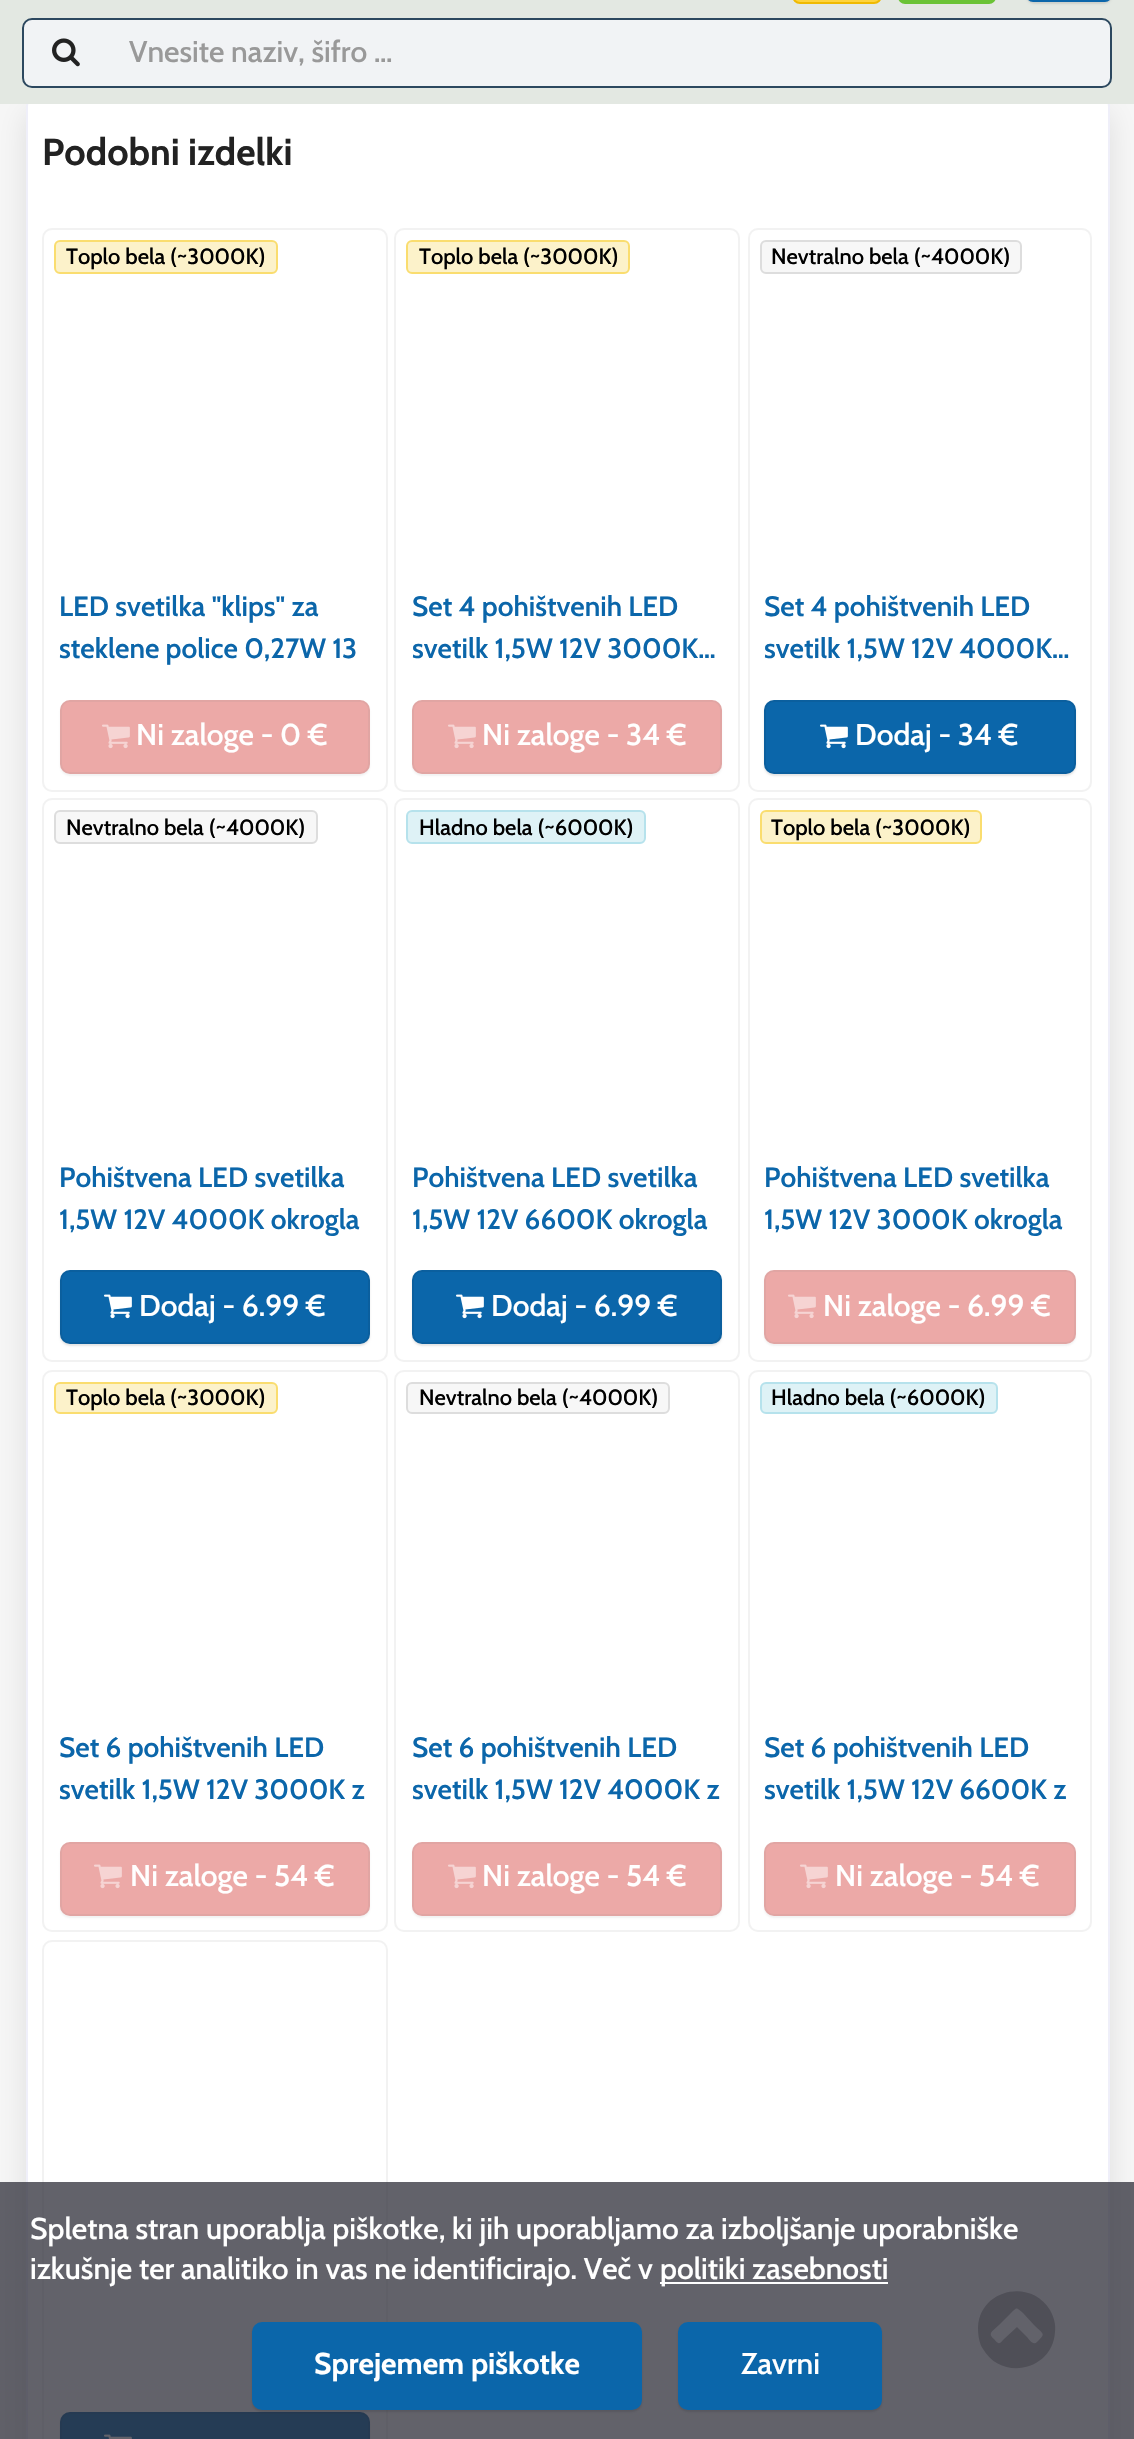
void draw(SkCanvas* canvas) {
	SkPaint fill;
	fill.setAntiAlias(true);
	auto makeFont = [&](const char* family, int weight, float size, bool italic = false) {
		SkFontStyle style(weight, SkFontStyle::kNormal_Width,
			italic ? SkFontStyle::kItalic_Slant : SkFontStyle::kUpright_Slant);
		SkFont result(fontMgr->matchFamilyStyle(family, style), size);
		result.setSubpixel(true);
		return result;
	};
	auto text = [&](const char* s, float x, float y, const SkFont& font) {
		canvas->drawString(s, x, y, font, fill);
	};
	auto box = [&](float l, float t, float r, float b) {
		canvas->drawRect(SkRect::MakeLTRB(l, t, r, b), fill);
	};
	auto roundBox = [&](float l, float t, float r, float b, float radius) {
		canvas->drawRoundRect(SkRect::MakeLTRB(l, t, r, b), radius, radius, fill);
	};
	auto picture = [&](const char* path, float l, float t, float r, float b) {
		auto image = SkImages::DeferredFromEncodedData(SkData::MakeFromFileName(path));
		canvas->drawImageRect(image, SkRect::MakeLTRB(l, t, r, b), SkSamplingOptions());
	};
	canvas->clear(0xFFF7F7F7);
	fill.setColor(0x1A000000);
	fill.setMaskFilter(SkMaskFilter::MakeBlur(kNormal_SkBlurStyle, 15));
	canvas->drawRoundRect(SkRect::MakeLTRB(26, 112, 1110, 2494), 10, 10, fill);
	fill.setMaskFilter(nullptr);
	fill.setColor(0xFFFFFFFF);
	canvas->drawRoundRect(SkRect::MakeLTRB(27, 97, 1109, 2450), 9, 9, fill);
	fill.setStyle(SkPaint::kStroke_Style);
	fill.setStrokeWidth(2);
	fill.setColor(0xFFEFEFF9);
	canvas->drawRoundRect(SkRect::MakeLTRB(27, 97, 1109, 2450), 9, 9, fill);
	fill.setStyle(SkPaint::kFill_Style);
	fill.setColor(0xFFE3E8E2);
	box(0, 0, 1134, 104);
	fill.setColor(0xFFFED43D);
	canvas->drawRoundRect(SkRect::MakeLTRB(793, -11, 881, 3), 9, 9, fill);
	fill.setStyle(SkPaint::kStroke_Style);
	fill.setColor(0xFFEFBA01);
	canvas->drawRoundRect(SkRect::MakeLTRB(793, -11, 881, 3), 9, 9, fill);
	fill.setStyle(SkPaint::kFill_Style);
	fill.setColor(0xFF6AC335);
	roundBox(898, -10, 996, 4, 10);
	fill.setColor(0x1A000000);
	fill.setMaskFilter(SkMaskFilter::MakeBlur(kNormal_SkBlurStyle, 1));
	canvas->drawRoundRect(SkRect::MakeLTRB(1026, -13, 1112, 4), 10, 10, fill);
	fill.setMaskFilter(nullptr);
	fill.setStyle(SkPaint::kStroke_Style);
	fill.setColor(0xFF0B66AA);
	canvas->drawRoundRect(SkRect::MakeLTRB(1027, -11, 1111, 1), 9, 9, fill);
	fill.setStyle(SkPaint::kFill_Style);
	fill.setColor(0xFFF1F3F5);
	canvas->drawRoundRect(SkRect::MakeLTRB(23, 19, 1111, 87), 9, 9, fill);
	fill.setStyle(SkPaint::kStroke_Style);
	fill.setColor(0xFF2C485F);
	canvas->drawRoundRect(SkRect::MakeLTRB(23, 19, 1111, 87), 9, 9, fill);
	picture("image0.png", 52, 38, 80, 67);
	fill.setColor(0xFFF2F2F2);
	canvas->drawRoundRect(SkRect::MakeLTRB(43, 229, 387, 791), 9, 9, fill);
	fill.setStyle(SkPaint::kFill_Style);
	fill.setColor(0xFFFCF2CA);
	canvas->drawRoundRect(SkRect::MakeLTRB(55, 241, 277, 273), 5, 5, fill);
	fill.setStyle(SkPaint::kStroke_Style);
	fill.setColor(0xFFFADD6F);
	canvas->drawRoundRect(SkRect::MakeLTRB(55, 241, 277, 273), 5, 5, fill);
	fill.setStyle(SkPaint::kFill_Style);
	fill.setColor(0x1A808080);
	fill.setMaskFilter(SkMaskFilter::MakeBlur(kNormal_SkBlurStyle, 1));
	canvas->drawRoundRect(SkRect::MakeLTRB(60, 702, 370, 776), 10, 10, fill);
	fill.setMaskFilter(nullptr);
	fill.setColor(0xFFECA9A7);
	roundBox(60, 700, 370, 774, 10);
	fill.setStyle(SkPaint::kStroke_Style);
	fill.setColor(0x1A808080);
	canvas->drawRoundRect(SkRect::MakeLTRB(61, 701, 369, 773), 9, 9, fill);
	picture("image1.png", 102, 724, 130, 749);
	fill.setColor(0xFFF2F2F2);
	canvas->drawRoundRect(SkRect::MakeLTRB(395, 229, 739, 791), 9, 9, fill);
	fill.setStyle(SkPaint::kFill_Style);
	fill.setColor(0xFFFCF2CA);
	canvas->drawRoundRect(SkRect::MakeLTRB(407, 241, 629, 273), 5, 5, fill);
	fill.setStyle(SkPaint::kStroke_Style);
	fill.setColor(0xFFFADD6F);
	canvas->drawRoundRect(SkRect::MakeLTRB(407, 241, 629, 273), 5, 5, fill);
	fill.setStyle(SkPaint::kFill_Style);
	fill.setColor(0x1A808080);
	fill.setMaskFilter(SkMaskFilter::MakeBlur(kNormal_SkBlurStyle, 1));
	canvas->drawRoundRect(SkRect::MakeLTRB(412, 702, 722, 776), 10, 10, fill);
	fill.setMaskFilter(nullptr);
	fill.setColor(0xFFECA9A7);
	roundBox(412, 700, 722, 774, 10);
	fill.setStyle(SkPaint::kStroke_Style);
	fill.setColor(0x1A808080);
	canvas->drawRoundRect(SkRect::MakeLTRB(413, 701, 721, 773), 9, 9, fill);
	picture("image1.png", 448, 724, 476, 749);
	fill.setColor(0xFFF2F2F2);
	canvas->drawRoundRect(SkRect::MakeLTRB(749, 229, 1091, 791), 9, 9, fill);
	fill.setStyle(SkPaint::kFill_Style);
	fill.setColor(0xFFF7F7F7);
	canvas->drawRoundRect(SkRect::MakeLTRB(761, 241, 1021, 273), 5, 5, fill);
	fill.setStyle(SkPaint::kStroke_Style);
	fill.setColor(0xFFDDDDDD);
	canvas->drawRoundRect(SkRect::MakeLTRB(761, 241, 1021, 273), 5, 5, fill);
	fill.setStyle(SkPaint::kFill_Style);
	fill.setColor(0x1A000000);
	fill.setMaskFilter(SkMaskFilter::MakeBlur(kNormal_SkBlurStyle, 1));
	canvas->drawRoundRect(SkRect::MakeLTRB(764, 702, 1076, 776), 10, 10, fill);
	fill.setMaskFilter(nullptr);
	fill.setColor(0xFF0B66AA);
	roundBox(764, 700, 1076, 774, 10);
	fill.setStyle(SkPaint::kStroke_Style);
	fill.setColor(0x12000000);
	canvas->drawRoundRect(SkRect::MakeLTRB(765, 701, 1075, 773), 9, 9, fill);
	picture("image2.png", 820, 724, 848, 749);
	fill.setColor(0xFFF2F2F2);
	canvas->drawRoundRect(SkRect::MakeLTRB(43, 799, 387, 1361), 9, 9, fill);
	fill.setStyle(SkPaint::kFill_Style);
	fill.setColor(0xFFF7F7F7);
	canvas->drawRoundRect(SkRect::MakeLTRB(55, 811, 317, 843), 5, 5, fill);
	fill.setStyle(SkPaint::kStroke_Style);
	fill.setColor(0xFFDDDDDD);
	canvas->drawRoundRect(SkRect::MakeLTRB(55, 811, 317, 843), 5, 5, fill);
	fill.setStyle(SkPaint::kFill_Style);
	fill.setColor(0x1A000000);
	fill.setMaskFilter(SkMaskFilter::MakeBlur(kNormal_SkBlurStyle, 1));
	canvas->drawRoundRect(SkRect::MakeLTRB(60, 1272, 370, 1346), 10, 10, fill);
	fill.setMaskFilter(nullptr);
	fill.setColor(0xFF0B66AA);
	roundBox(60, 1270, 370, 1344, 10);
	fill.setStyle(SkPaint::kStroke_Style);
	fill.setColor(0x12000000);
	canvas->drawRoundRect(SkRect::MakeLTRB(61, 1271, 369, 1343), 9, 9, fill);
	picture("image2.png", 104, 1294, 132, 1319);
	fill.setColor(0xFFF2F2F2);
	canvas->drawRoundRect(SkRect::MakeLTRB(395, 799, 739, 1361), 9, 9, fill);
	fill.setStyle(SkPaint::kFill_Style);
	fill.setColor(0xFFDEF2F6);
	canvas->drawRoundRect(SkRect::MakeLTRB(407, 811, 645, 843), 5, 5, fill);
	fill.setStyle(SkPaint::kStroke_Style);
	fill.setColor(0xFFB6E2EC);
	canvas->drawRoundRect(SkRect::MakeLTRB(407, 811, 645, 843), 5, 5, fill);
	fill.setStyle(SkPaint::kFill_Style);
	fill.setColor(0x1A000000);
	fill.setMaskFilter(SkMaskFilter::MakeBlur(kNormal_SkBlurStyle, 1));
	canvas->drawRoundRect(SkRect::MakeLTRB(412, 1272, 722, 1346), 10, 10, fill);
	fill.setMaskFilter(nullptr);
	fill.setColor(0xFF0B66AA);
	roundBox(412, 1270, 722, 1344, 10);
	fill.setStyle(SkPaint::kStroke_Style);
	fill.setColor(0x12000000);
	canvas->drawRoundRect(SkRect::MakeLTRB(413, 1271, 721, 1343), 9, 9, fill);
	picture("image2.png", 456, 1294, 484, 1319);
	fill.setColor(0xFFF2F2F2);
	canvas->drawRoundRect(SkRect::MakeLTRB(749, 799, 1091, 1361), 9, 9, fill);
	fill.setStyle(SkPaint::kFill_Style);
	fill.setColor(0xFFFCF2CA);
	canvas->drawRoundRect(SkRect::MakeLTRB(761, 811, 981, 843), 5, 5, fill);
	fill.setStyle(SkPaint::kStroke_Style);
	fill.setColor(0xFFFADD6F);
	canvas->drawRoundRect(SkRect::MakeLTRB(761, 811, 981, 843), 5, 5, fill);
	fill.setStyle(SkPaint::kFill_Style);
	fill.setColor(0x1A808080);
	fill.setMaskFilter(SkMaskFilter::MakeBlur(kNormal_SkBlurStyle, 1));
	canvas->drawRoundRect(SkRect::MakeLTRB(764, 1272, 1076, 1346), 10, 10, fill);
	fill.setMaskFilter(nullptr);
	fill.setColor(0xFFECA9A7);
	roundBox(764, 1270, 1076, 1344, 10);
	fill.setStyle(SkPaint::kStroke_Style);
	fill.setColor(0x1A808080);
	canvas->drawRoundRect(SkRect::MakeLTRB(765, 1271, 1075, 1343), 9, 9, fill);
	picture("image1.png", 788, 1294, 816, 1319);
	fill.setColor(0xFFF2F2F2);
	canvas->drawRoundRect(SkRect::MakeLTRB(43, 1371, 387, 1931), 9, 9, fill);
	fill.setStyle(SkPaint::kFill_Style);
	fill.setColor(0xFFFCF2CA);
	canvas->drawRoundRect(SkRect::MakeLTRB(55, 1383, 277, 1413), 5, 5, fill);
	fill.setStyle(SkPaint::kStroke_Style);
	fill.setColor(0xFFFADD6F);
	canvas->drawRoundRect(SkRect::MakeLTRB(55, 1383, 277, 1413), 5, 5, fill);
	fill.setStyle(SkPaint::kFill_Style);
	fill.setColor(0x1A808080);
	fill.setMaskFilter(SkMaskFilter::MakeBlur(kNormal_SkBlurStyle, 1));
	canvas->drawRoundRect(SkRect::MakeLTRB(60, 1844, 370, 1918), 10, 10, fill);
	fill.setMaskFilter(nullptr);
	fill.setColor(0xFFECA9A7);
	roundBox(60, 1842, 370, 1916, 10);
	fill.setStyle(SkPaint::kStroke_Style);
	fill.setColor(0x1A808080);
	canvas->drawRoundRect(SkRect::MakeLTRB(61, 1843, 369, 1915), 9, 9, fill);
	picture("image1.png", 94, 1864, 122, 1889);
	fill.setColor(0xFFF2F2F2);
	canvas->drawRoundRect(SkRect::MakeLTRB(395, 1371, 739, 1931), 9, 9, fill);
	fill.setStyle(SkPaint::kFill_Style);
	fill.setColor(0xFFF7F7F7);
	canvas->drawRoundRect(SkRect::MakeLTRB(407, 1383, 669, 1413), 5, 5, fill);
	fill.setStyle(SkPaint::kStroke_Style);
	fill.setColor(0xFFDDDDDD);
	canvas->drawRoundRect(SkRect::MakeLTRB(407, 1383, 669, 1413), 5, 5, fill);
	fill.setStyle(SkPaint::kFill_Style);
	fill.setColor(0x1A808080);
	fill.setMaskFilter(SkMaskFilter::MakeBlur(kNormal_SkBlurStyle, 1));
	canvas->drawRoundRect(SkRect::MakeLTRB(412, 1844, 722, 1918), 10, 10, fill);
	fill.setMaskFilter(nullptr);
	fill.setColor(0xFFECA9A7);
	roundBox(412, 1842, 722, 1916, 10);
	fill.setStyle(SkPaint::kStroke_Style);
	fill.setColor(0x1A808080);
	canvas->drawRoundRect(SkRect::MakeLTRB(413, 1843, 721, 1915), 9, 9, fill);
	picture("image1.png", 448, 1864, 476, 1889);
	fill.setColor(0xFFF2F2F2);
	canvas->drawRoundRect(SkRect::MakeLTRB(749, 1371, 1091, 1931), 9, 9, fill);
	fill.setStyle(SkPaint::kFill_Style);
	fill.setColor(0xFFDEF2F6);
	canvas->drawRoundRect(SkRect::MakeLTRB(761, 1383, 997, 1413), 5, 5, fill);
	fill.setStyle(SkPaint::kStroke_Style);
	fill.setColor(0xFFB6E2EC);
	canvas->drawRoundRect(SkRect::MakeLTRB(761, 1383, 997, 1413), 5, 5, fill);
	fill.setStyle(SkPaint::kFill_Style);
	fill.setColor(0x1A808080);
	fill.setMaskFilter(SkMaskFilter::MakeBlur(kNormal_SkBlurStyle, 1));
	canvas->drawRoundRect(SkRect::MakeLTRB(764, 1844, 1076, 1918), 10, 10, fill);
	fill.setMaskFilter(nullptr);
	fill.setColor(0xFFECA9A7);
	roundBox(764, 1842, 1076, 1916, 10);
	fill.setStyle(SkPaint::kStroke_Style);
	fill.setColor(0x1A808080);
	canvas->drawRoundRect(SkRect::MakeLTRB(765, 1843, 1075, 1915), 9, 9, fill);
	picture("image1.png", 800, 1864, 828, 1889);
	fill.setColor(0xFFF2F2F2);
	canvas->drawRoundRect(SkRect::MakeLTRB(43, 1941, 387, 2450), 9, 9, fill);
	fill.setStyle(SkPaint::kFill_Style);
	fill.setColor(0x1A000000);
	fill.setMaskFilter(SkMaskFilter::MakeBlur(kNormal_SkBlurStyle, 1));
	canvas->drawRoundRect(SkRect::MakeLTRB(60, 2414, 370, 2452), 10, 10, fill);
	fill.setMaskFilter(nullptr);
	fill.setColor(0xFF0B66AA);
	roundBox(60, 2412, 370, 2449, 10);
	fill.setStyle(SkPaint::kStroke_Style);
	fill.setColor(0x12000000);
	canvas->drawRoundRect(SkRect::MakeLTRB(61, 2413, 369, 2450), 9, 9, fill);
	picture("image3.png", 104, 2434, 132, 2439);
	fill.setStyle(SkPaint::kFill_Style);
	fill.setColor(0xFFB3B3B3);
	canvas->drawPath(SkPathBuilder().moveTo(1037, 2342).cubicTo(1046, 2333, 1044, 2335, 1034, 2325).lineTo(1023, 2313).cubicTo(1016, 2307, 1017, 2307, 1011, 2313).lineTo(999, 2325).cubicTo(993, 2331, 987, 2333, 994, 2339).cubicTo(998, 2344, 999, 2345, 1004, 2339).lineTo(1017, 2327).lineTo(1027, 2337).cubicTo(1029, 2339, 1033, 2346, 1037, 2342).close().moveTo(1050, 2310).cubicTo(1054, 2317, 1056, 2325, 1055, 2332).cubicTo(1053, 2370, 1002, 2382, 983, 2349).cubicTo(979, 2343, 978, 2335, 978, 2327).cubicTo(980, 2289, 1031, 2278, 1050, 2310).close().detach(), fill);
	fill.setColor(0xBF2D2D38);
	box(0, 2182, 1134, 2439);
	fill.setColor(0xFFFFFFFF);
	box(660, 2282, 888, 2284);
	fill.setColor(0x1A000000);
	fill.setMaskFilter(SkMaskFilter::MakeBlur(kNormal_SkBlurStyle, 1));
	canvas->drawRoundRect(SkRect::MakeLTRB(252, 2324, 642, 2412), 10, 10, fill);
	fill.setMaskFilter(nullptr);
	fill.setColor(0xFF0B66AA);
	canvas->drawRoundRect(SkRect::MakeLTRB(253, 2323, 641, 2409), 9, 9, fill);
	fill.setStyle(SkPaint::kStroke_Style);
	canvas->drawRoundRect(SkRect::MakeLTRB(253, 2323, 641, 2409), 9, 9, fill);
	fill.setStyle(SkPaint::kFill_Style);
	fill.setColor(0x1A000000);
	fill.setMaskFilter(SkMaskFilter::MakeBlur(kNormal_SkBlurStyle, 1));
	canvas->drawRoundRect(SkRect::MakeLTRB(678, 2324, 882, 2412), 10, 10, fill);
	fill.setMaskFilter(nullptr);
	fill.setColor(0xFF0B66AA);
	canvas->drawRoundRect(SkRect::MakeLTRB(679, 2323, 881, 2409), 9, 9, fill);
	fill.setStyle(SkPaint::kStroke_Style);
	canvas->drawRoundRect(SkRect::MakeLTRB(679, 2323, 881, 2409), 9, 9, fill);
	auto font1 = makeFont("Cabin", 500, 30);
	fill.setStyle(SkPaint::kFill_Style);
	fill.setColor(0xFF999999);
	text("Vnesite naziv, šifro …", 129, 62, font1);
	auto font2 = makeFont("Cabin", 700, 37.5f);
	fill.setColor(0xFF222222);
	text("Podobni izdelki", 42, 165, font2);
	auto font3 = makeFont("Cabin", 500, 22);
	fill.setColor(0xFF000000);
	text("Toplo bela (~3000K)", 66, 264, font3);
	auto font4 = makeFont("Cabin", 600, 28);
	fill.setColor(0xFF0B66AA);
	text("LED svetilka \"klips\" za", 59, 616, font4);
	text("steklene police 0,27W 13", 59, 658, font4);
	fill.setColor(0xFFFFFFFF);
	text("Ni zaloge - 0 €", 136, 745, font1);
	fill.setColor(0xFF000000);
	text("Toplo bela (~3000K)", 419, 264, font3);
	fill.setColor(0xFF0B66AA);
	text("Set 4 pohištvenih LED", 412, 616, font4);
	text("svetilk 1,5W 12V 3000K…", 412, 658, font4);
	fill.setColor(0xFFFFFFFF);
	text("Ni zaloge - 34 €", 482, 745, font1);
	fill.setColor(0xFF000000);
	text("Nevtralno bela (~4000K)", 771, 264, font3);
	fill.setColor(0xFF0B66AA);
	text("Set 4 pohištvenih LED", 764, 616, font4);
	text("svetilk 1,5W 12V 4000K…", 764, 658, font4);
	fill.setColor(0xFFFFFFFF);
	text("Dodaj - 34 €", 855, 745, font1);
	fill.setColor(0xFF000000);
	text("Nevtralno bela (~4000K)", 66, 835, font3);
	fill.setColor(0xFF0B66AA);
	text("Pohištvena LED svetilka", 59, 1187, font4);
	text("1,5W 12V 4000K okrogla", 59, 1229, font4);
	fill.setColor(0xFFFFFFFF);
	text("Dodaj - 6.99 €", 139, 1316, font1);
	fill.setColor(0xFF000000);
	text("Hladno bela (~6000K)", 419, 835, font3);
	fill.setColor(0xFF0B66AA);
	text("Pohištvena LED svetilka", 412, 1187, font4);
	text("1,5W 12V 6600K okrogla", 412, 1229, font4);
	fill.setColor(0xFFFFFFFF);
	text("Dodaj - 6.99 €", 491, 1316, font1);
	fill.setColor(0xFF000000);
	text("Toplo bela (~3000K)", 771, 835, font3);
	fill.setColor(0xFF0B66AA);
	text("Pohištvena LED svetilka", 764, 1187, font4);
	text("1,5W 12V 3000K okrogla", 764, 1229, font4);
	fill.setColor(0xFFFFFFFF);
	text("Ni zaloge - 6.99 €", 823, 1316, font1);
	fill.setColor(0xFF000000);
	text("Toplo bela (~3000K)", 66, 1405, font3);
	fill.setColor(0xFF0B66AA);
	text("Set 6 pohištvenih LED", 59, 1757, font4);
	text("svetilk 1,5W 12V 3000K z", 59, 1799, font4);
	fill.setColor(0xFFFFFFFF);
	text("Ni zaloge - 54 €", 130, 1886, font1);
	fill.setColor(0xFF000000);
	text("Nevtralno bela (~4000K)", 419, 1405, font3);
	fill.setColor(0xFF0B66AA);
	text("Set 6 pohištvenih LED", 412, 1757, font4);
	text("svetilk 1,5W 12V 4000K z", 412, 1799, font4);
	fill.setColor(0xFFFFFFFF);
	text("Ni zaloge - 54 €", 482, 1886, font1);
	fill.setColor(0xFF000000);
	text("Hladno bela (~6000K)", 771, 1405, font3);
	fill.setColor(0xFF0B66AA);
	text("Set 6 pohištvenih LED", 764, 1757, font4);
	text("svetilk 1,5W 12V 6600K z", 764, 1799, font4);
	fill.setColor(0xFFFFFFFF);
	text("Ni zaloge - 54 €", 835, 1886, font1);
	text("Spletna stran uporablja piškotke, ki jih uporabljamo za izboljšanje uporabniške", 30, 2239, font1);
	text("izkušnje ter analitiko in vas ne identificirajo. Več v", 30, 2279, font1);
	text("politiki zasebnosti", 660, 2279, font1);
	auto font5 = makeFont("Cabin", 700, 30);
	text("Sprejemem piškotke", 314, 2374, font5);
	text("Zavrni", 741, 2374, font1);
}
